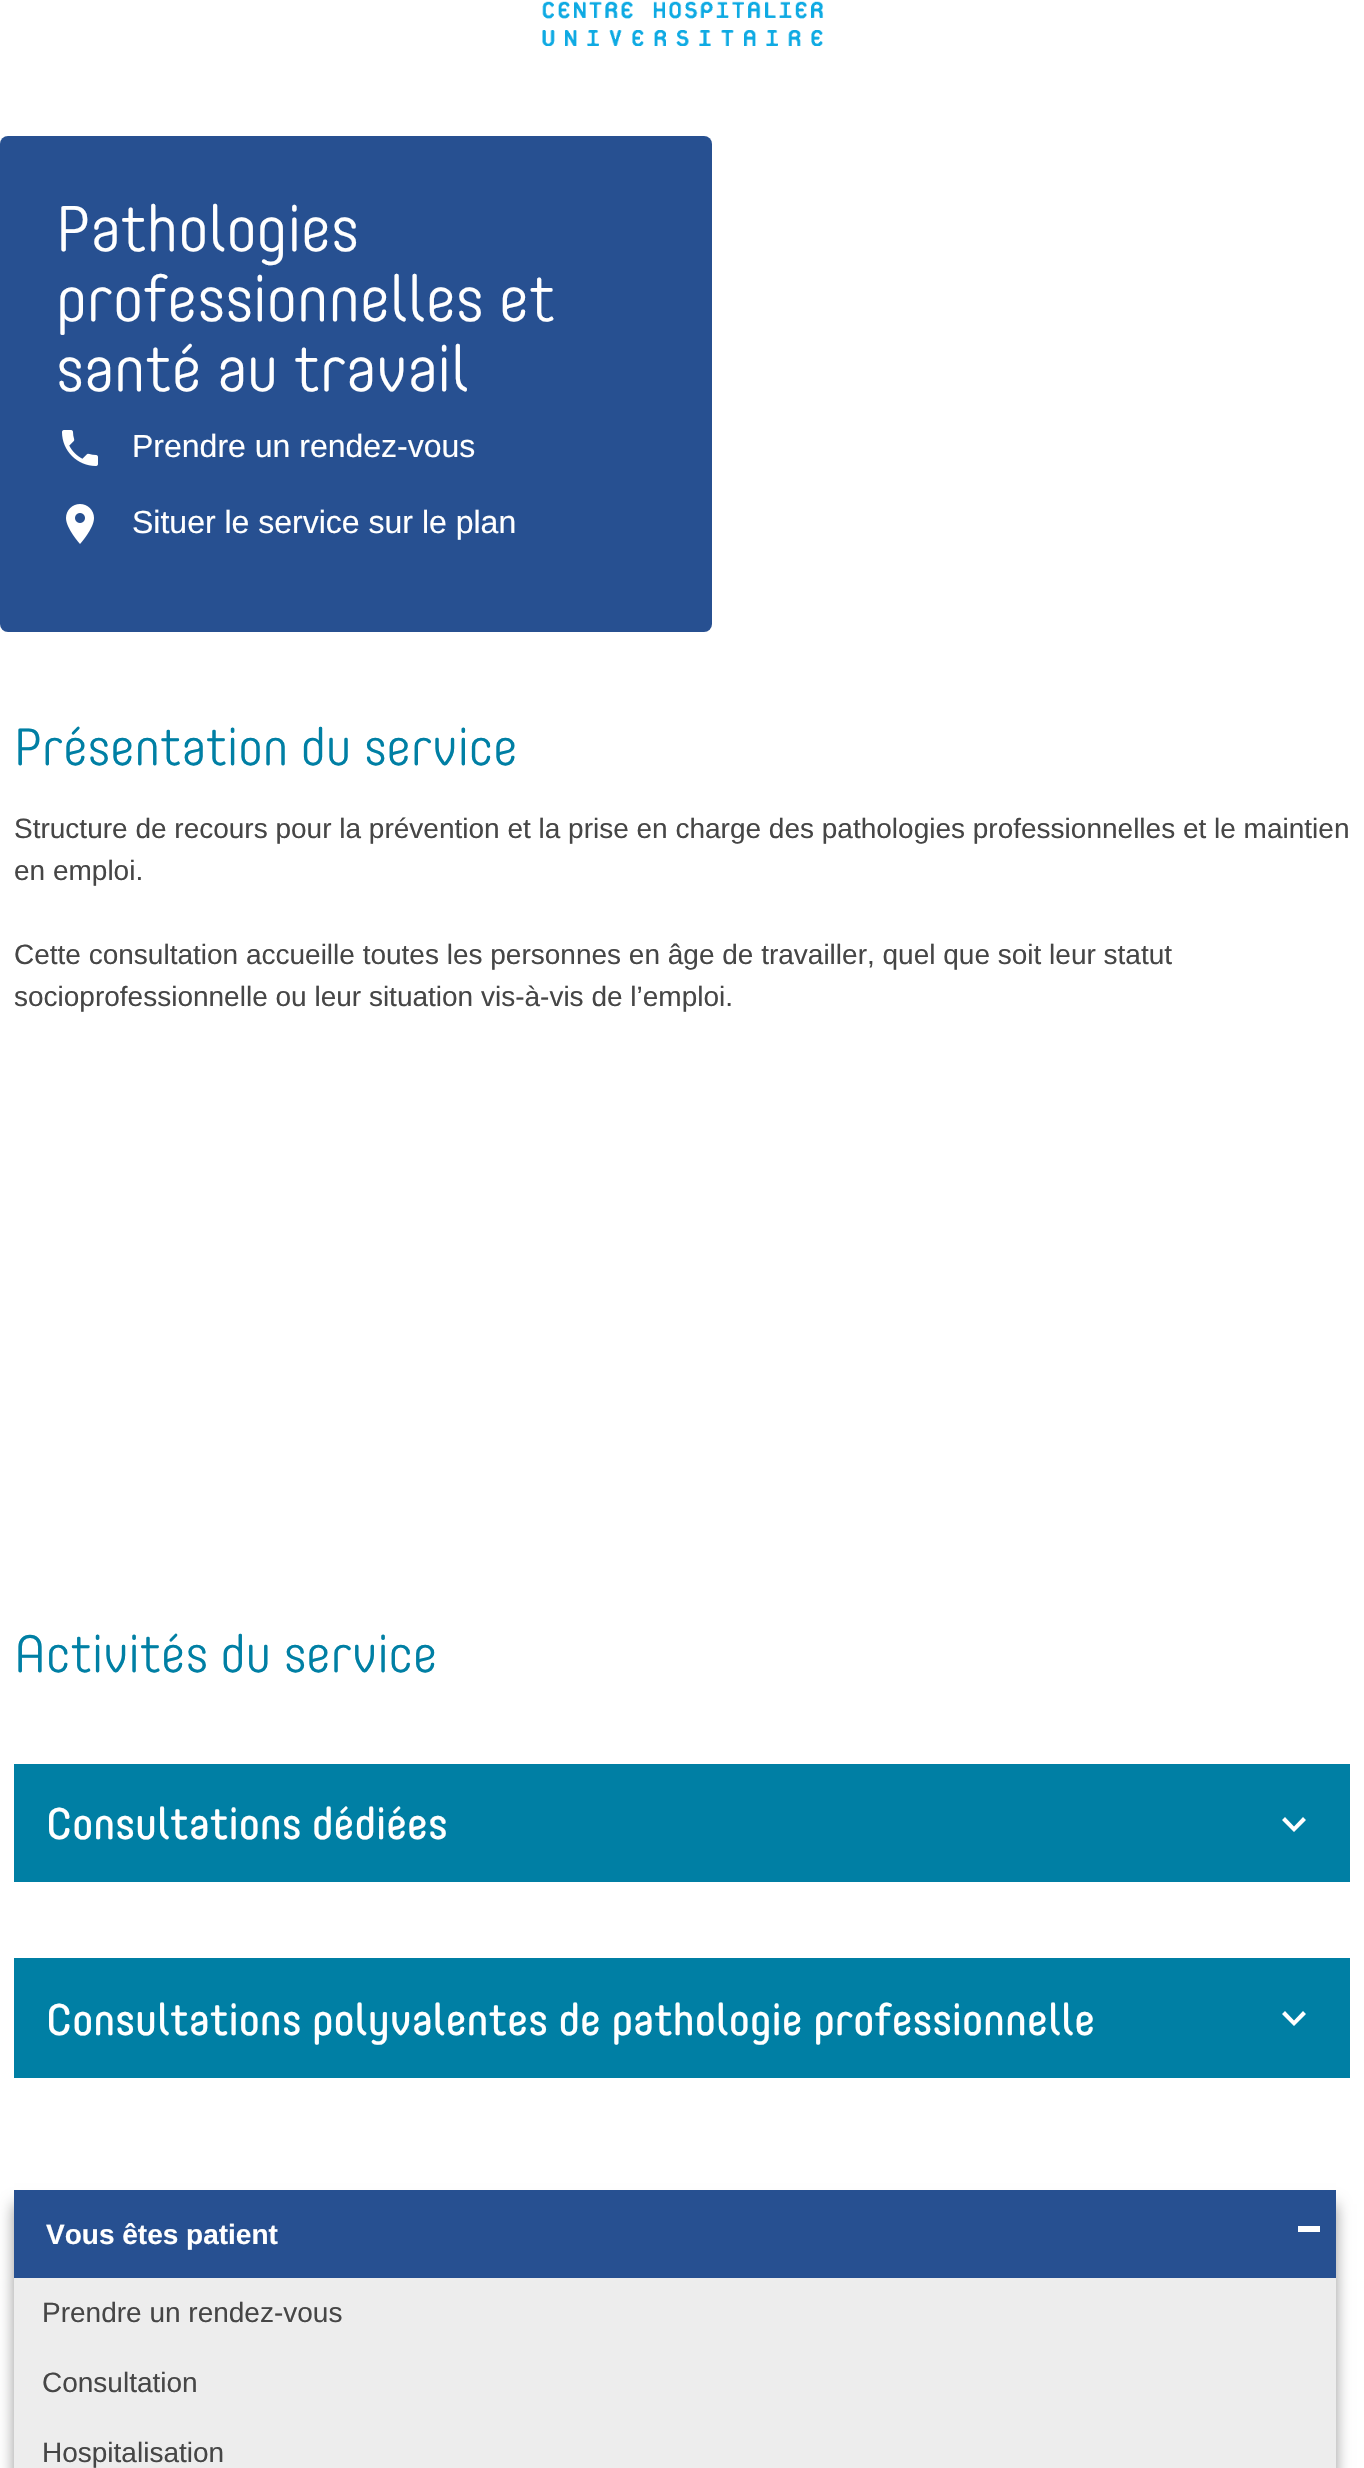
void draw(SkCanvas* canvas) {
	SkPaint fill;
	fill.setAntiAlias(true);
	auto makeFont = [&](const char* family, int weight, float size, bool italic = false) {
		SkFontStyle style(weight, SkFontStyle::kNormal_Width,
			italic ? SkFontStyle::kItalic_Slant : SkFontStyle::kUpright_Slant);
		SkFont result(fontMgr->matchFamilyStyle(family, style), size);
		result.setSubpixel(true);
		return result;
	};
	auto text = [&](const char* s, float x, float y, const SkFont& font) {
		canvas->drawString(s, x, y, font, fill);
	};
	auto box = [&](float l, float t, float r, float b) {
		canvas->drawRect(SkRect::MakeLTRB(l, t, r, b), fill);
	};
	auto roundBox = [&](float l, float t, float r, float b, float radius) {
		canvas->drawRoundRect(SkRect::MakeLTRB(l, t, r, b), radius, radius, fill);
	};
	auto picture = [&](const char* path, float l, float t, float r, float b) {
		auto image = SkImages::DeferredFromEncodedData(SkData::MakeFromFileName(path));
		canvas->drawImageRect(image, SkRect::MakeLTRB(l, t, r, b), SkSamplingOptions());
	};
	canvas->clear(0xFFFFFFFF);
	picture("image0.png", 542, 1, 824, 46);
	fill.setColor(0xFF275091);
	roundBox(0, 136, 712, 632, 8);
	picture("image1.png", 62, 430, 98, 466);
	picture("image2.png", 66, 504, 94, 544);
	fill.setColor(0xFF007FA4);
	box(14, 1764, 1350, 1882);
	fill.setColor(0xFFFFFFFF);
	canvas->drawPath(SkPathBuilder(SkPathFillType::kEvenOdd).moveTo(1285, 1817).lineTo(1294, 1826.5f).lineTo(1303, 1817).lineTo(1306, 1820).lineTo(1294, 1832).lineTo(1282, 1820).close().detach(), fill);
	fill.setColor(0xFF007FA4);
	box(14, 1958, 1350, 2078);
	fill.setColor(0xFFFFFFFF);
	canvas->drawPath(SkPathBuilder(SkPathFillType::kEvenOdd).moveTo(1285, 2011).lineTo(1294, 2020.5f).lineTo(1303, 2011).lineTo(1306, 2014).lineTo(1294, 2026).lineTo(1282, 2014).close().detach(), fill);
	fill.setColor(0x66000000);
	fill.setMaskFilter(SkMaskFilter::MakeBlur(kNormal_SkBlurStyle, 7));
	canvas->drawRect(SkRect::MakeLTRB(14, 2204, 1336, 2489), fill);
	fill.setMaskFilter(nullptr);
	fill.setColor(0xFFEDEDED);
	box(14, 2278, 1336, 2468);
	fill.setColor(0xFF275091);
	box(14, 2190, 1336, 2278);
	fill.setColor(0xFFFFFFFF);
	box(1298, 2226, 1320, 2232);
	auto font1 = makeFont("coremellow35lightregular", 400, 64);
	text("Pathologies", 56, 251, font1);
	text("professionnelles et", 56, 321, font1);
	text("santé au travail", 56, 391, font1);
	auto font2 = makeFont("Liberation Sans", 400, 32);
	text("Prendre un rendez-vous", 132, 457, font2);
	text("Situer le service sur le plan", 132, 533, font2);
	auto font3 = makeFont("coremellow35lightregular", 400, 52);
	fill.setColor(0xFF007FA4);
	text("Présentation du service", 14, 765, font3);
	auto font4 = makeFont("Liberation Sans", 400, 28);
	fill.setColor(0xFF464646);
	text("Structure de recours pour la prévention et la prise en charge des pathologies professionnelles et le maintien", 14, 838, font4);
	text("en emploi.", 14, 880, font4);
	text("Cette consultation accueille toutes les personnes en âge de travailler, quel que soit leur statut", 14, 964, font4);
	text("socioprofessionnelle ou leur situation vis-à-vis de l’emploi.", 14, 1006, font4);
	fill.setColor(0xFF007FA4);
	text("Activités du service", 14, 1672, font3);
	auto font5 = makeFont("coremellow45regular", 400, 44);
	fill.setColor(0xFFFFFFFF);
	text("Consultations dédiées", 46, 1839, font5);
	text("Consultations polyvalentes de pathologie professionnelle", 46, 2035, font5);
	auto font6 = makeFont("Liberation Sans", 700, 28);
	text("Vous êtes patient", 46, 2244, font6);
	fill.setColor(0xFF464646);
	text("Prendre un rendez-vous", 42, 2322, font4);
	text("Consultation", 42, 2392, font4);
	text("Hospitalisation", 42, 2462, font4);
}
